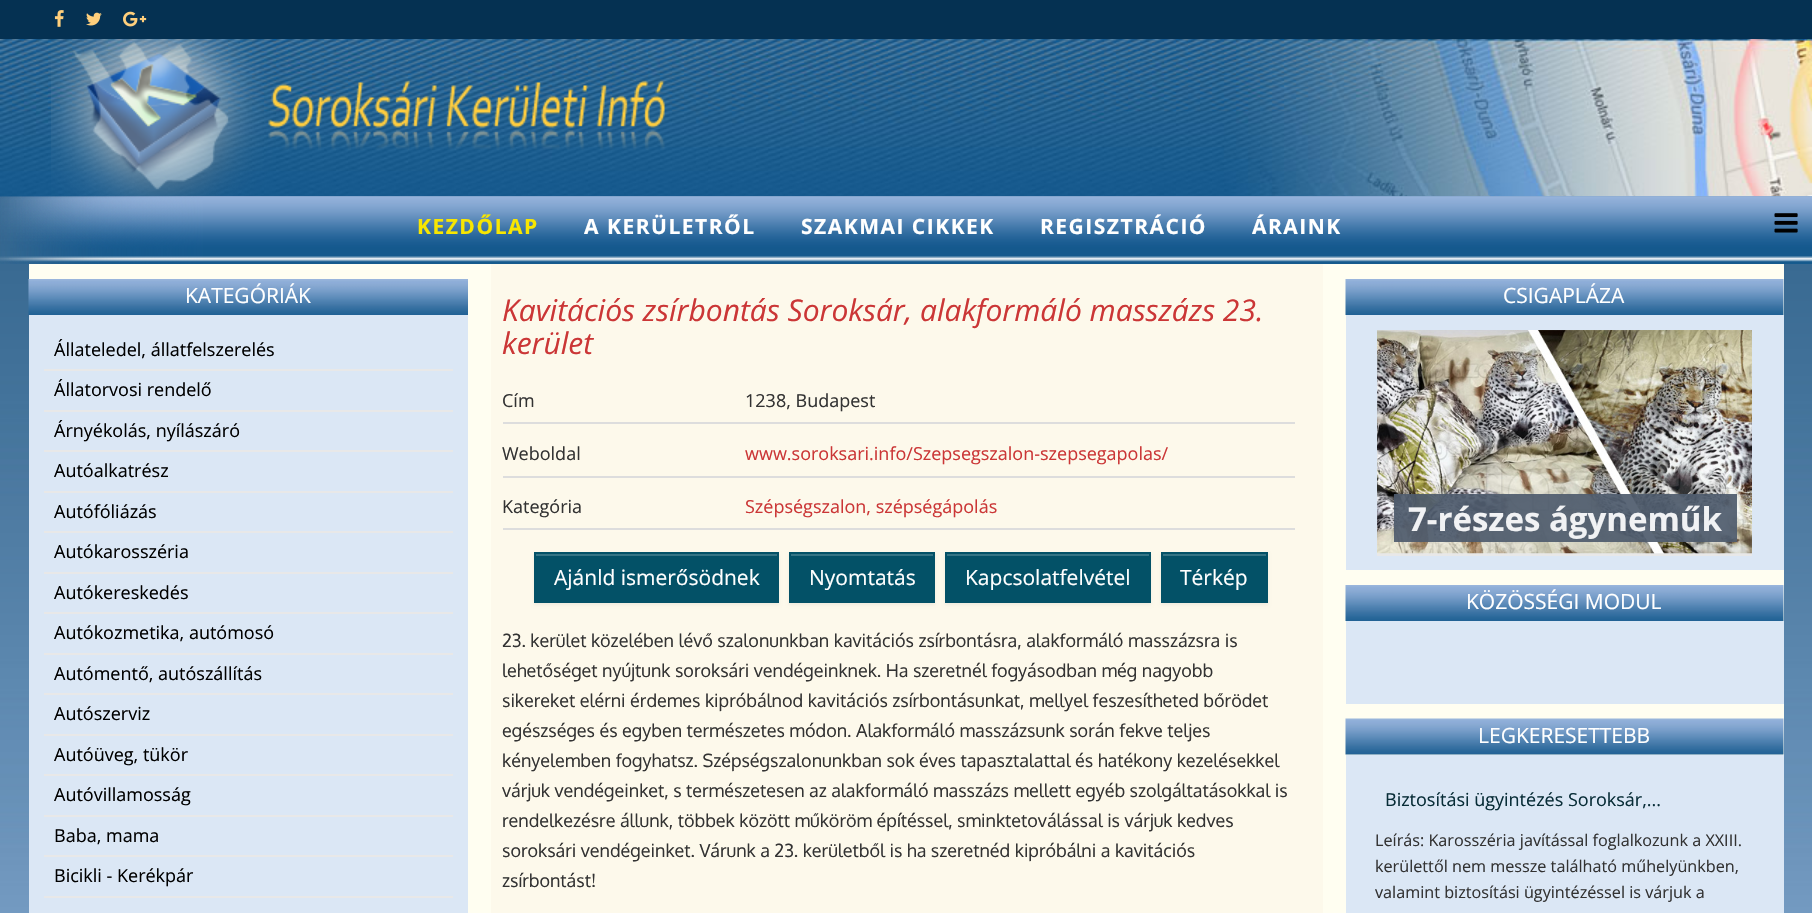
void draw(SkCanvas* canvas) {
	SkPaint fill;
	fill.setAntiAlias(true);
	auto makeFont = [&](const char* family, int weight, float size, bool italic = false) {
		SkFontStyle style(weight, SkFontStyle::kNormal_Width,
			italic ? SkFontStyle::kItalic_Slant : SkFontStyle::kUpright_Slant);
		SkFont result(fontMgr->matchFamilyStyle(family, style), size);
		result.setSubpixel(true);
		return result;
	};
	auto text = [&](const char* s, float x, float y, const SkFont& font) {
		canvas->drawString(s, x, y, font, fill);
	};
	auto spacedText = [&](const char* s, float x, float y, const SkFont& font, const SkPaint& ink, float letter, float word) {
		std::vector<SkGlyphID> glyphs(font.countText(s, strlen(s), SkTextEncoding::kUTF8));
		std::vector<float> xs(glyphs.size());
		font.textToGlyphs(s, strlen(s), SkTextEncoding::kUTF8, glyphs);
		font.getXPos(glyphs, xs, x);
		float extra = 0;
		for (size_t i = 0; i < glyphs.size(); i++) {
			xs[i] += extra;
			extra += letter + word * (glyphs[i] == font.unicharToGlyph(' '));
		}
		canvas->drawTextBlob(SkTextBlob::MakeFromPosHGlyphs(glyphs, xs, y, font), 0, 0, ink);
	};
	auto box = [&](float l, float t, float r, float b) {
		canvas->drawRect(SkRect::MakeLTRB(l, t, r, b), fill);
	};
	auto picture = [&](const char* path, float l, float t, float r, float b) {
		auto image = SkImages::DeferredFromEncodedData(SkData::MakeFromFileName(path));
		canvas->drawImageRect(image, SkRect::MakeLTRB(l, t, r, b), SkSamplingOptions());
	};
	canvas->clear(0xFFFFFFFF);
	picture("image0.png", 0, 196, 1812, 913);
	fill.setColor(0xFF053152);
	box(0, 0, 1812, 39);
	picture("image1.png", 54, 10, 64, 27);
	picture("image2.png", 86, 12, 102, 26);
	picture("image3.png", 123, 11, 147, 27);
	picture("image4.png", 0, 39, 1812, 197);
	picture("image6.png", 9, 196, 1812, 264);
	picture("image5.png", 51, 39, 665, 197);
	picture("image7.png", 0, 196, 1812, 264);
	picture("image8.png", 0, 196, 1808, 264);
	picture("image9.png", 1774, 213, 1798, 233);
	fill.setColor(0xFFFFFEF1);
	box(29, 264, 1784, 913);
	picture("image10.png", 28, 279, 468, 315);
	fill.setColor(0xFFDBE7F5);
	box(29, 315, 468, 913);
	fill.setColor(0xFFE8E8E8);
	box(44, 369, 453, 371);
	box(44, 410, 453, 412);
	box(44, 450, 453, 452);
	box(44, 491, 453, 493);
	box(44, 531, 453, 533);
	box(44, 572, 453, 574);
	box(44, 612, 453, 614);
	box(44, 653, 453, 655);
	box(44, 693, 453, 695);
	box(44, 734, 453, 736);
	box(44, 774, 453, 776);
	box(44, 815, 453, 817);
	box(44, 855, 453, 857);
	box(44, 896, 453, 898);
	fill.setColor(0xFFFDF9EB);
	box(491, 264, 1323, 913);
	fill.setColor(0xFFDDDDDD);
	box(503, 422, 1295, 424);
	box(503, 476, 1295, 478);
	box(503, 528, 1295, 530);
	fill.setColor(0x0D000000);
	fill.setMaskFilter(SkMaskFilter::MakeBlur(kNormal_SkBlurStyle, 1.5f));
	canvas->drawRect(SkRect::MakeLTRB(534, 554, 779, 605), fill);
	fill.setMaskFilter(nullptr);
	fill.setColor(0xFF035167);
	box(534, 552, 779, 603);
	fill.setColor(0xFF357485);
	box(536, 554, 777, 556);
	fill.setColor(0x0D000000);
	fill.setMaskFilter(SkMaskFilter::MakeBlur(kNormal_SkBlurStyle, 1.5f));
	canvas->drawRect(SkRect::MakeLTRB(789, 554, 935, 605), fill);
	fill.setMaskFilter(nullptr);
	fill.setColor(0xFF035167);
	box(789, 552, 935, 603);
	fill.setColor(0xFF357485);
	box(791, 554, 933, 556);
	fill.setColor(0x0D000000);
	fill.setMaskFilter(SkMaskFilter::MakeBlur(kNormal_SkBlurStyle, 1.5f));
	canvas->drawRect(SkRect::MakeLTRB(945, 554, 1151, 605), fill);
	fill.setMaskFilter(nullptr);
	fill.setColor(0xFF035167);
	box(945, 552, 1151, 603);
	fill.setColor(0xFF357485);
	box(947, 554, 1149, 556);
	fill.setColor(0x0D000000);
	fill.setMaskFilter(SkMaskFilter::MakeBlur(kNormal_SkBlurStyle, 1.5f));
	canvas->drawRect(SkRect::MakeLTRB(1161, 554, 1268, 605), fill);
	fill.setMaskFilter(nullptr);
	fill.setColor(0xFF035167);
	box(1161, 552, 1268, 603);
	fill.setColor(0xFF357485);
	box(1163, 554, 1266, 556);
	picture("image11.png", 1345, 279, 1784, 315);
	fill.setColor(0xFFDBE7F5);
	box(1346, 315, 1784, 570);
	fill.setColor(0xFFE9E9E9);
	box(1377, 553, 1752, 554);
	fill.setColor(0xFFE8E8E8);
	box(1377, 554, 1752, 556);
	picture("image12.png", 1377, 330, 1752, 554);
	fill.setColor(0xEB4E5B6C);
	box(1394, 494, 1737, 542);
	picture("image13.png", 1345, 585, 1784, 621);
	fill.setColor(0xFFDBE7F5);
	box(1346, 621, 1784, 704);
	picture("image14.png", 1345, 718, 1784, 755);
	box(1346, 755, 1784, 913);
	auto font1 = makeFont("Open Sans", 700, 21);
	fill.setColor(0xFFF8E601);
	spacedText("KEZDŐLAP", 417, 234, font1, fill, 1.5f, 0);
	fill.setColor(0xFFFFFFFF);
	spacedText("A KERÜLETRŐL", 584, 234, font1, fill, 1.5f, 0);
	spacedText("SZAKMAI CIKKEK", 801, 234, font1, fill, 1.5f, 0);
	spacedText("REGISZTRÁCIÓ", 1040, 234, font1, fill, 1.5f, 0);
	spacedText("ÁRAINK", 1252, 234, font1, fill, 1.5f, 0);
	auto font2 = makeFont("Open Sans", 400, 21);
	text("KATEGÓRIÁK", 185, 303, font2);
	auto font3 = makeFont("Open Sans", 400, 18);
	fill.setColor(0xFF000000);
	text("Állateledel, állatfelszerelés", 54, 356, font3);
	text("Állatorvosi rendelő", 54, 396, font3);
	text("Árnyékolás, nyílászáró", 54, 437, font3);
	text("Autóalkatrész", 54, 477, font3);
	text("Autófóliázás", 54, 518, font3);
	text("Autókarosszéria", 54, 558, font3);
	text("Autókereskedés", 54, 599, font3);
	text("Autókozmetika, autómosó", 54, 639, font3);
	text("Autómentő, autószállítás", 54, 680, font3);
	text("Autószerviz", 54, 720, font3);
	text("Autóüveg, tükör", 54, 761, font3);
	text("Autóvillamosság", 54, 801, font3);
	text("Baba, mama", 54, 842, font3);
	text("Bicikli - Kerékpár", 54, 882, font3);
	auto font4 = makeFont("Open Sans", 400, 30, true);
	fill.setColor(0xFFCB3636);
	text("Kavitációs zsírbontás Soroksár, alakformáló masszázs 23.", 502, 321, font4);
	text("kerület", 502, 354, font4);
	fill.setColor(0xFF333333);
	text("Cím", 502, 407, font3);
	text("1238, Budapest", 745, 407, font3);
	text("Weboldal", 502, 460, font3);
	fill.setColor(0xFFCB3636);
	text("www.soroksari.info/Szepsegszalon-szepsegapolas/", 745, 460, font3);
	fill.setColor(0xFF333333);
	text("Kategória", 502, 513, font3);
	fill.setColor(0xFFCB3636);
	text("Szépségszalon, szépségápolás", 745, 513, font3);
	fill.setColor(0xFFFFFFFF);
	text("Ajánld ismerősödnek", 554, 585, font2);
	text("Nyomtatás", 809, 585, font2);
	text("Kapcsolatfelvétel", 965, 585, font2);
	text("Térkép", 1180, 585, font2);
	auto font5 = makeFont("Oxygen", 400, 18);
	fill.setColor(0xFF333333);
	text("23. kerület közelében lévő szalonunkban kavitációs zsírbontásra, alakformáló masszázsra is", 502, 647, font5);
	text("lehetőséget nyújtunk soroksári vendégeinknek. Ha szeretnél fogyásodban még nagyobb", 502, 677, font5);
	text("sikereket elérni érdemes kipróbálnod kavitációs zsírbontásunkat, mellyel feszesítheted bőrödet", 502, 707, font5);
	text("egészséges és egyben természetes módon. Alakformáló masszázsunk során fekve teljes", 502, 737, font5);
	text("kényelemben fogyhatsz. Szépségszalonunkban sok éves tapasztalattal és hatékony kezelésekkel", 502, 767, font5);
	text("várjuk vendégeinket, s természetesen az alakformáló masszázs mellett egyéb szolgáltatásokkal is", 502, 797, font5);
	text("rendelkezésre állunk, többek között műköröm építéssel, sminktetoválással is várjuk kedves", 502, 827, font5);
	text("soroksári vendégeinket. Várunk a 23. kerületből is ha szeretnéd kipróbálni a kavitációs", 502, 857, font5);
	text("zsírbontást!", 502, 887, font5);
	fill.setColor(0xFFFFFFFF);
	text("CSIGAPLÁZA", 1503, 303, font2);
	auto font6 = makeFont("Open Sans", 700, 33);
	fill.setColor(0xFFF1F2F4);
	text("7-részes ágyneműk", 1408, 531, font6);
	fill.setColor(0xFFFFFFFF);
	text("KÖZÖSSÉGI MODUL", 1466, 609, font2);
	text("LEGKERESETTEBB", 1478, 743, font2);
	fill.setColor(0xFF082D37);
	text("Biztosítási ügyintézés Soroksár,...", 1385, 806, font3);
	auto font7 = makeFont("Open Sans", 400, 16.2f);
	fill.setColor(0xFF333333);
	text("Leírás: Karosszéria javítással foglalkozunk a XXIII.", 1375, 846, font7);
	text("kerülettől nem messze található műhelyünkben,", 1375, 872, font7);
	text("valamint biztosítási ügyintézéssel is várjuk a", 1375, 898, font7);
}
